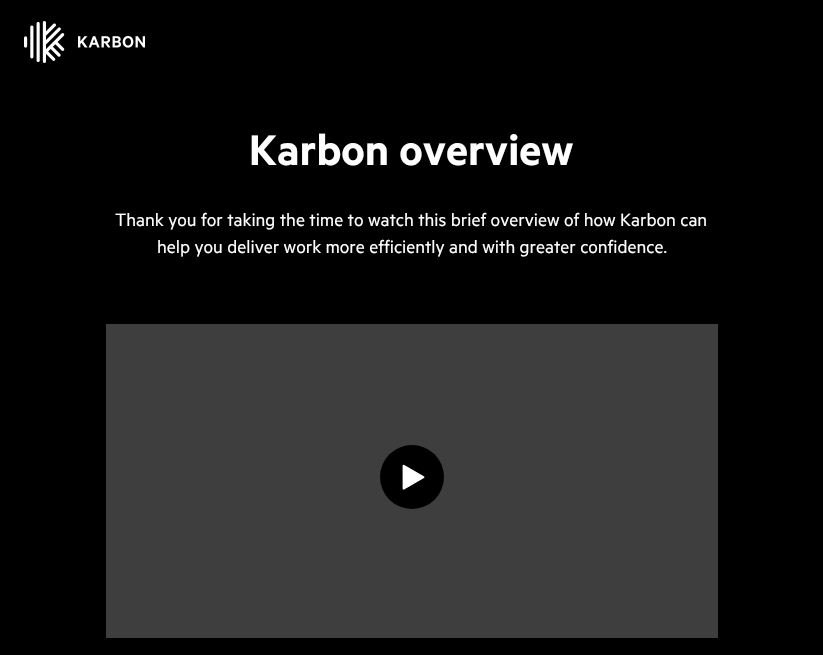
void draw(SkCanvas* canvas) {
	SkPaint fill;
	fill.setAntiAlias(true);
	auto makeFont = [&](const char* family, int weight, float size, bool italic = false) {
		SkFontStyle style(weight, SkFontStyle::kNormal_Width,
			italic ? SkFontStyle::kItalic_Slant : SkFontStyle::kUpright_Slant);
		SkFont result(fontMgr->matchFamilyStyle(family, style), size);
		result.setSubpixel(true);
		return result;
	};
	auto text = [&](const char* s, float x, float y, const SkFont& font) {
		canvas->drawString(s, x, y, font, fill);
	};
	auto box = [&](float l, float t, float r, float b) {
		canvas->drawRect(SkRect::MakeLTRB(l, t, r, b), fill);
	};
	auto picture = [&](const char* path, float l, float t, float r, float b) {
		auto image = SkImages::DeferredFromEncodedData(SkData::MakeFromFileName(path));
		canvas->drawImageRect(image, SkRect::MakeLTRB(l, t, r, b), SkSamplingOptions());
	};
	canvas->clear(0xFF000000);
	picture("image0.png", 24, 21, 145, 63);
	fill.setColor(0xFF3E3E3E);
	box(106, 324, 718, 638);
	fill.setColor(0xFF000000);
	canvas->drawCircle(412, 477, 32, fill);
	picture("image1.png", 402, 464, 425, 490);
	auto font1 = makeFont("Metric", 600, 48);
	fill.setColor(0xFFFFFFFF);
	text("Karbon overview", 249, 165, font1);
	auto font2 = makeFont("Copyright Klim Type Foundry", 400, 20);
	text("Thank you for taking the time to watch this brief overview of how Karbon can", 115, 226, font2);
	text("help you deliver work more efficiently and with greater confidence.", 157, 253, font2);
}
